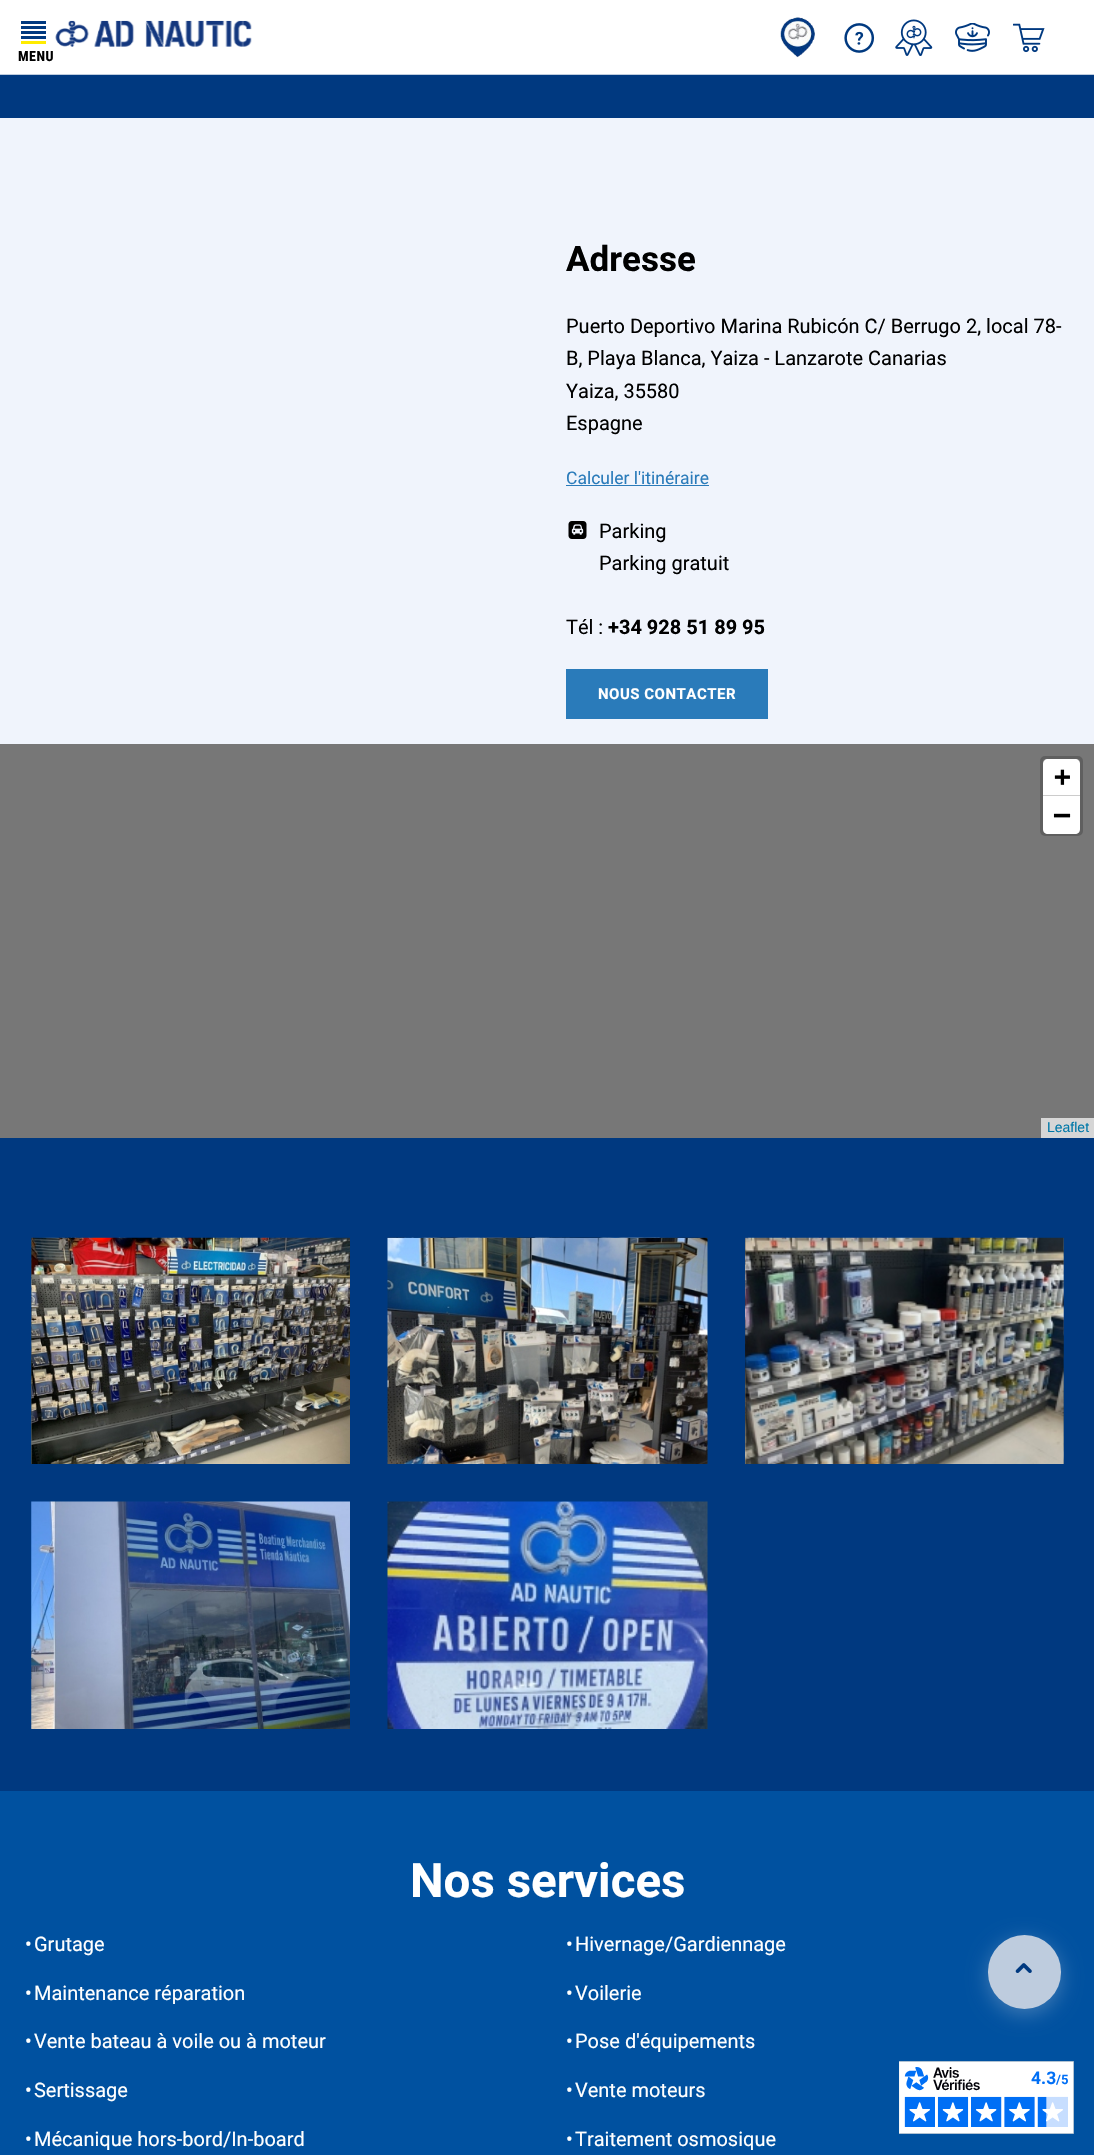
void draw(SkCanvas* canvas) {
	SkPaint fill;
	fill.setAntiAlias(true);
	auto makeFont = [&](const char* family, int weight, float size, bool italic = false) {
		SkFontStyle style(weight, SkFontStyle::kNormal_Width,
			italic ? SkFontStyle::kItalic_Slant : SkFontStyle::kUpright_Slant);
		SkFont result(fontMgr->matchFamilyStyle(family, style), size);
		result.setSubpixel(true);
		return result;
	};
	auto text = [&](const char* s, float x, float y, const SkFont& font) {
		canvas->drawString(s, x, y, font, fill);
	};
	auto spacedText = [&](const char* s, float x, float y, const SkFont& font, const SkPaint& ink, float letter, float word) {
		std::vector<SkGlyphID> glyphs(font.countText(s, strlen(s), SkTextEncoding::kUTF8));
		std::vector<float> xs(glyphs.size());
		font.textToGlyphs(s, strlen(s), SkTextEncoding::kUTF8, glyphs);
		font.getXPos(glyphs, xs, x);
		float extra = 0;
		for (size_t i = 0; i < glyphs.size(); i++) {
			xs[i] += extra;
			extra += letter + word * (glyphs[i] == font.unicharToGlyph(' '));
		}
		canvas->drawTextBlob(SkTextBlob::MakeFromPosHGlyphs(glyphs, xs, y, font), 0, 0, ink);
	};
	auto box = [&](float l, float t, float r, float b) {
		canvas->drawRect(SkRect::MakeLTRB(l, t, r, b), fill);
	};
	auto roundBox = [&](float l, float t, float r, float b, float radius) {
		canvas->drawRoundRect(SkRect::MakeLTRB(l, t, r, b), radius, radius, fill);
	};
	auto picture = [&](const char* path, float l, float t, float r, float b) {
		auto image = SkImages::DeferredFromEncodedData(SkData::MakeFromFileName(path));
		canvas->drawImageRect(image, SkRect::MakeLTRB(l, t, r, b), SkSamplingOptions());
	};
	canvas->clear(0xFFF0F4FC);
	fill.setColor(0xFFFFFFFF);
	box(0, 0, 1094, 74);
	fill.setColor(0xFFBECCDE);
	box(0, 74, 1094, 75);
	fill.setColor(0xFF003980);
	box(21, 21, 46, 24);
	box(21, 26, 46, 29);
	box(21, 31, 46, 34);
	box(21, 36, 46, 39);
	fill.setColor(0xFFFFEC00);
	box(21, 41, 46, 44);
	picture("image0.png", 55, 20, 252, 47);
	picture("image1.png", 780, 17, 815, 58);
	picture("image2.png", 844, 23, 875, 53);
	picture("image3.png", 895, 19, 933, 56);
	picture("image4.png", 955, 23, 990, 52);
	picture("image5.png", 1013, 23, 1045, 53);
	fill.setColor(0xFF003980);
	box(0, 75, 1094, 118);
	fill.setColor(0xFF2A7BBA);
	box(566, 485, 709, 486);
	picture("image6.png", 568, 521, 587, 539);
	box(566, 669, 768, 719);
	fill.setColor(0xFF777777);
	box(0, 744, 1094, 1138);
	fill.setStyle(SkPaint::kStroke_Style);
	fill.setStrokeWidth(3);
	fill.setColor(0xFF5F5F5F);
	canvas->drawRoundRect(SkRect::MakeLTRB(1041.5f, 757.5f, 1081.5f, 834.5f), 3.5f, 3.5f, fill);
	fill.setStyle(SkPaint::kFill_Style);
	fill.setColor(0xFFFFFFFF);
	canvas->drawPath(SkPathBuilder().moveTo(1048, 759).lineTo(1075, 759).cubicTo(1078, 759, 1080, 761, 1080, 764).lineTo(1080, 796).lineTo(1043, 796).lineTo(1043, 764).cubicTo(1043, 761, 1045, 759, 1048, 759).close().detach(), fill);
	fill.setColor(0xFFCCCCCC);
	box(1043, 795, 1080, 796);
	fill.setColor(0xFFFFFFFF);
	canvas->drawPath(SkPathBuilder().moveTo(1043, 796).lineTo(1080, 796).lineTo(1080, 829).cubicTo(1080, 832, 1078, 834, 1075, 834).lineTo(1048, 834).cubicTo(1045, 834, 1043, 832, 1043, 829).close().detach(), fill);
	fill.setColor(0xFFD6D6D6);
	box(1041, 1118, 1094, 1138);
	fill.setColor(0xFF003980);
	box(0, 1138, 1094, 1791);
	picture("image7.png", 31, 1237, 350, 1464);
	picture("image8.png", 387, 1237, 708, 1464);
	picture("image9.png", 745, 1237, 1064, 1464);
	picture("image10.png", 31, 1501, 350, 1729);
	picture("image11.png", 387, 1501, 708, 1729);
	fill.setColor(0xFF0051A0);
	box(0, 1791, 1094, 2155);
	fill.setColor(0x57BECCDE);
	fill.setMaskFilter(SkMaskFilter::MakeBlur(kNormal_SkBlurStyle, 10));
	canvas->drawRoundRect(SkRect::MakeLTRB(988, 1940, 1061, 2014), 36.5f, 36.5f, fill);
	fill.setMaskFilter(nullptr);
	fill.setColor(0xFFBECCDE);
	roundBox(988, 1935, 1061, 2009, 36.5f);
	picture("image12.png", 1015, 1963, 1032, 1973);
	picture("image13.png", 899, 2061, 1074, 2134);
	auto font1 = makeFont("Roboto Condensed", 700, 14);
	fill.setColor(0xFF000000);
	spacedText("MENU", 18, 61, font1, fill, 0.5f, 0);
	auto font2 = makeFont("Roboto", 700, 35);
	text("Adresse", 566, 271, font2);
	auto font3 = makeFont("Roboto", 400, 20);
	text("Puerto Deportivo Marina Rubicón C/ Berrugo 2, local 78-", 566, 333, font3);
	text("B, Playa Blanca, Yaiza - Lanzarote Canarias", 566, 365, font3);
	text("Yaiza, 35580", 566, 398, font3);
	text("Espagne", 566, 430, font3);
	auto font4 = makeFont("Roboto", 400, 17.5f);
	fill.setColor(0xFF2A7BBA);
	text("Calculer l'itinéraire", 566, 484, font4);
	fill.setColor(0xFF000000);
	text("Parking", 599, 538, font3);
	text("Parking gratuit", 599, 570, font3);
	text("Tél :", 566, 634, font3);
	auto font5 = makeFont("Roboto", 700, 20);
	text("+34 928 51 89 95", 608, 634, font5);
	auto font6 = makeFont("Roboto", 700, 15);
	fill.setColor(0xFFFFFFFF);
	spacedText("NOUS CONTACTER", 598, 699, font6, fill, 0.5f, 0);
	auto font7 = makeFont("DejaVu Sans Mono", 700, 28);
	fill.setColor(0xFF000000);
	text("+", 1054, 786, font7);
	auto font8 = makeFont("DejaVu Sans Mono", 700, 30);
	text("−", 1053, 825, font8);
	auto font9 = makeFont("Liberation Sans", 400, 14);
	fill.setColor(0xFF0078A8);
	text("Leaflet", 1047, 1132, font9);
	auto font10 = makeFont("Roboto", 700, 47.5f);
	fill.setColor(0xFFFFFFFF);
	text("Nos services", 410, 1897, font10);
	text("•", 25, 1951, font3);
	text("Grutage", 34, 1951, font3);
	text("•", 566, 1951, font3);
	text("Hivernage/Gardiennage", 575, 1951, font3);
	text("•", 25, 2000, font3);
	text("Maintenance réparation", 34, 2000, font3);
	text("•", 566, 2000, font3);
	text("Voilerie", 575, 2000, font3);
	text("•", 25, 2048, font3);
	text("Vente bateau à voile ou à moteur", 34, 2048, font3);
	text("•", 566, 2048, font3);
	text("Pose d'équipements", 575, 2048, font3);
	text("•", 25, 2097, font3);
	text("Sertissage", 34, 2097, font3);
	text("•", 566, 2097, font3);
	text("Vente moteurs", 575, 2097, font3);
	text("•", 25, 2146, font3);
	text("Mécanique hors-bord/In-board", 34, 2146, font3);
	text("•", 566, 2146, font3);
	text("Traitement osmosique", 575, 2146, font3);
}
